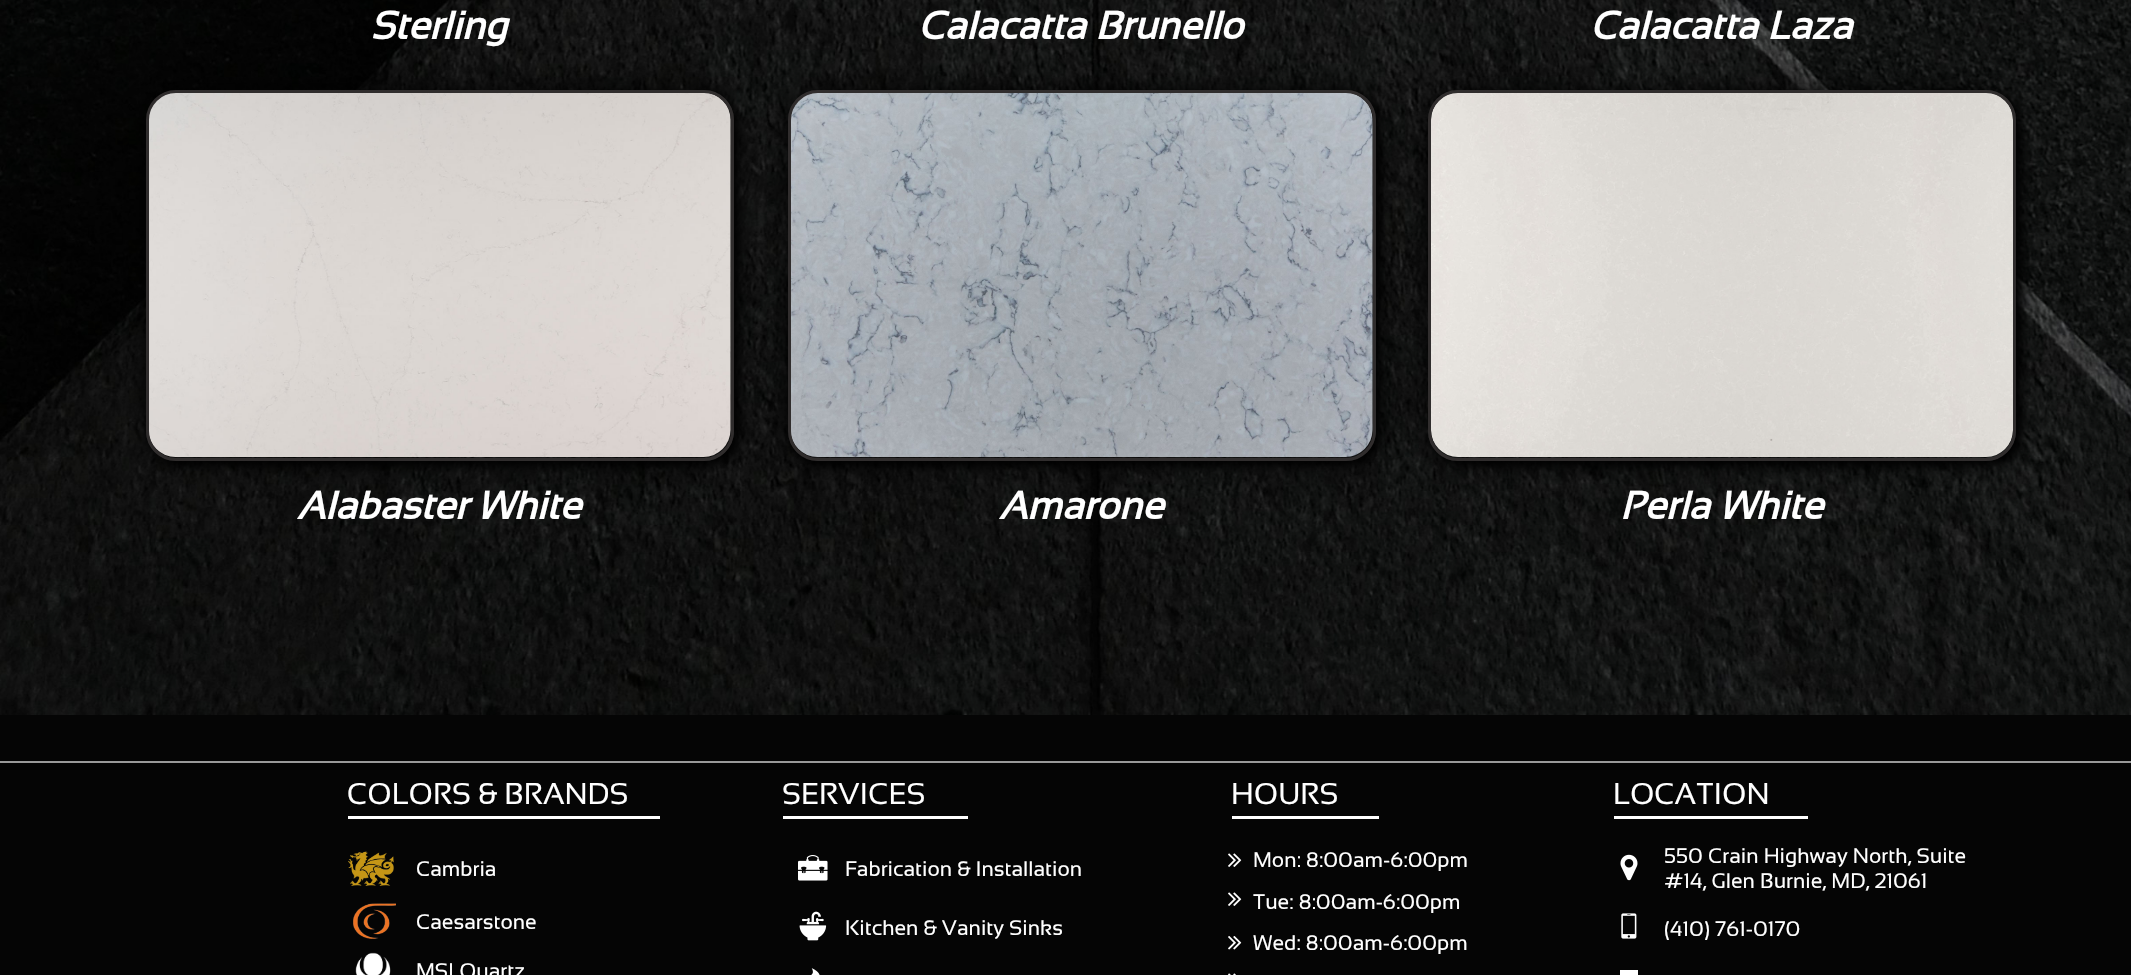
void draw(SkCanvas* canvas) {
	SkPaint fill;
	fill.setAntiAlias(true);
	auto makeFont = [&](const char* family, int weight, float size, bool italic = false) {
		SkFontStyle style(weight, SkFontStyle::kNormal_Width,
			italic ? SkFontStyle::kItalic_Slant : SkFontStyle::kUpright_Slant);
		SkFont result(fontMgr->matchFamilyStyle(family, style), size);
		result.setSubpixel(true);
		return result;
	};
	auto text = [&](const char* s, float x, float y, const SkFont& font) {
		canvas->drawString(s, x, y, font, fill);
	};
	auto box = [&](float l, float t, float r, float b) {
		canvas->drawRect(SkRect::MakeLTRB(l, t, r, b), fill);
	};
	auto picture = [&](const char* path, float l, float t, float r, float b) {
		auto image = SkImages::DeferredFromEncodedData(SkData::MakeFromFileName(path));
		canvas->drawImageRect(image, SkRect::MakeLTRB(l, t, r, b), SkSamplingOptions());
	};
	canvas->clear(0xFF050505);
	picture("image0.png", 0, 0, 2131, 715);
	picture("image1.png", 149, 93, 731, 457);
	canvas->save();
	canvas->clipPath(SkPathBuilder(SkPathFillType::kEvenOdd).moveTo(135, 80).lineTo(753, 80).lineTo(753, 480).lineTo(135, 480).close().moveTo(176, 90).lineTo(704, 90).cubicTo(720.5f, 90, 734, 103.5f, 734, 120).lineTo(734, 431).cubicTo(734, 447.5f, 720.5f, 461, 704, 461).lineTo(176, 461).cubicTo(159.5f, 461, 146, 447.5f, 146, 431).lineTo(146, 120).cubicTo(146, 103.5f, 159.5f, 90, 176, 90).close().detach(), true);
	fill.setColor(0xFF000000);
	fill.setMaskFilter(SkMaskFilter::MakeBlur(kNormal_SkBlurStyle, 4.5f));
	canvas->drawRoundRect(SkRect::MakeLTRB(150, 95, 738, 465), 30, 30, fill);
	fill.setMaskFilter(nullptr);
	canvas->restore();
	canvas->save();
	canvas->clipPath(SkPathBuilder(SkPathFillType::kEvenOdd).moveTo(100, 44).lineTo(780, 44).lineTo(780, 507).lineTo(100, 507).close().moveTo(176, 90).lineTo(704, 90).cubicTo(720.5f, 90, 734, 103.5f, 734, 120).lineTo(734, 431).cubicTo(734, 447.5f, 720.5f, 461, 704, 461).lineTo(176, 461).cubicTo(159.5f, 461, 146, 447.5f, 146, 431).lineTo(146, 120).cubicTo(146, 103.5f, 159.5f, 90, 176, 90).close().detach(), true);
	fill.setMaskFilter(SkMaskFilter::MakeBlur(kNormal_SkBlurStyle, 15));
	canvas->drawRoundRect(SkRect::MakeLTRB(146, 90, 734, 461), 30, 30, fill);
	fill.setMaskFilter(nullptr);
	canvas->restore();
	fill.setStyle(SkPaint::kStroke_Style);
	fill.setStrokeWidth(3);
	fill.setColor(0xFF302D2D);
	canvas->drawRoundRect(SkRect::MakeLTRB(147.5f, 91.5f, 732.5f, 459.5f), 28.5f, 28.5f, fill);
	picture("image2.png", 791, 93, 1373, 457);
	canvas->save();
	canvas->clipPath(SkPathBuilder(SkPathFillType::kEvenOdd).moveTo(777, 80).lineTo(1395, 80).lineTo(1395, 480).lineTo(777, 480).close().moveTo(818, 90).lineTo(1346, 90).cubicTo(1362.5f, 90, 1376, 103.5f, 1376, 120).lineTo(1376, 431).cubicTo(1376, 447.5f, 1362.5f, 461, 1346, 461).lineTo(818, 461).cubicTo(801.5f, 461, 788, 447.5f, 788, 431).lineTo(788, 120).cubicTo(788, 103.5f, 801.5f, 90, 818, 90).close().detach(), true);
	fill.setStyle(SkPaint::kFill_Style);
	fill.setColor(0xFF000000);
	fill.setMaskFilter(SkMaskFilter::MakeBlur(kNormal_SkBlurStyle, 4.5f));
	canvas->drawRoundRect(SkRect::MakeLTRB(792, 95, 1380, 465), 30, 30, fill);
	fill.setMaskFilter(nullptr);
	canvas->restore();
	canvas->save();
	canvas->clipPath(SkPathBuilder(SkPathFillType::kEvenOdd).moveTo(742, 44).lineTo(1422, 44).lineTo(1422, 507).lineTo(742, 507).close().moveTo(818, 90).lineTo(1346, 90).cubicTo(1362.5f, 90, 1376, 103.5f, 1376, 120).lineTo(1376, 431).cubicTo(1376, 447.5f, 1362.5f, 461, 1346, 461).lineTo(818, 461).cubicTo(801.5f, 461, 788, 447.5f, 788, 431).lineTo(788, 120).cubicTo(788, 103.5f, 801.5f, 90, 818, 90).close().detach(), true);
	fill.setMaskFilter(SkMaskFilter::MakeBlur(kNormal_SkBlurStyle, 15));
	canvas->drawRoundRect(SkRect::MakeLTRB(788, 90, 1376, 461), 30, 30, fill);
	fill.setMaskFilter(nullptr);
	canvas->restore();
	fill.setStyle(SkPaint::kStroke_Style);
	fill.setColor(0xFF302D2D);
	canvas->drawRoundRect(SkRect::MakeLTRB(789.5f, 91.5f, 1374.5f, 459.5f), 28.5f, 28.5f, fill);
	picture("image3.png", 1431, 93, 2013, 457);
	canvas->save();
	canvas->clipPath(SkPathBuilder(SkPathFillType::kEvenOdd).moveTo(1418, 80).lineTo(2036, 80).lineTo(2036, 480).lineTo(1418, 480).close().moveTo(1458, 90).lineTo(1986, 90).cubicTo(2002.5f, 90, 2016, 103.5f, 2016, 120).lineTo(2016, 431).cubicTo(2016, 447.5f, 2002.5f, 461, 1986, 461).lineTo(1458, 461).cubicTo(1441.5f, 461, 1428, 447.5f, 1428, 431).lineTo(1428, 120).cubicTo(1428, 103.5f, 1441.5f, 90, 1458, 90).close().detach(), true);
	fill.setStyle(SkPaint::kFill_Style);
	fill.setColor(0xFF000000);
	fill.setMaskFilter(SkMaskFilter::MakeBlur(kNormal_SkBlurStyle, 4.5f));
	canvas->drawRoundRect(SkRect::MakeLTRB(1433, 95, 2021, 465), 30, 30, fill);
	fill.setMaskFilter(nullptr);
	canvas->restore();
	canvas->save();
	canvas->clipPath(SkPathBuilder(SkPathFillType::kEvenOdd).moveTo(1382, 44).lineTo(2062, 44).lineTo(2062, 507).lineTo(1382, 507).close().moveTo(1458, 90).lineTo(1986, 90).cubicTo(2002.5f, 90, 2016, 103.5f, 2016, 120).lineTo(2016, 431).cubicTo(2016, 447.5f, 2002.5f, 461, 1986, 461).lineTo(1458, 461).cubicTo(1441.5f, 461, 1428, 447.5f, 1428, 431).lineTo(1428, 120).cubicTo(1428, 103.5f, 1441.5f, 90, 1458, 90).close().detach(), true);
	fill.setMaskFilter(SkMaskFilter::MakeBlur(kNormal_SkBlurStyle, 15));
	canvas->drawRoundRect(SkRect::MakeLTRB(1428, 90, 2016, 461), 30, 30, fill);
	fill.setMaskFilter(nullptr);
	canvas->restore();
	fill.setStyle(SkPaint::kStroke_Style);
	fill.setColor(0xFF302D2D);
	canvas->drawRoundRect(SkRect::MakeLTRB(1429.5f, 91.5f, 2014.5f, 459.5f), 28.5f, 28.5f, fill);
	fill.setStyle(SkPaint::kFill_Style);
	fill.setColor(0xFF999999);
	box(0, 761, 2131, 763);
	fill.setColor(0xFFFFFFFF);
	box(348, 816, 660, 819);
	box(783, 816, 968, 819);
	box(1232, 816, 1379, 819);
	box(1614, 816, 1808, 819);
	picture("image4.png", 348, 851, 394, 886);
	picture("image5.png", 798, 855, 828, 881);
	picture("image6.png", 1228, 853, 1242, 867);
	picture("image7.png", 1620, 854, 1638, 881);
	picture("image8.png", 353, 903, 396, 939);
	picture("image9.png", 799, 911, 827, 941);
	picture("image6.png", 1228, 892, 1242, 906);
	picture("image10.png", 1621, 913, 1637, 939);
	picture("image11.png", 1228, 936, 1242, 950);
	picture("image12.png", 355, 952, 391, 975);
	picture("image13.png", 811, 968, 820, 975);
	picture("image14.png", 1228, 973, 1236, 975);
	box(1620, 970, 1638, 975);
	auto font1 = makeFont("Sansation", 700, 39, true);
	text("Sterling", 370, 39, font1);
	text("Calacatta Brunello", 918, 39, font1);
	text("Calacatta Laza", 1590, 39, font1);
	text("Alabaster White", 297, 519, font1);
	text("Amarone", 999, 519, font1);
	text("Perla White", 1620, 519, font1);
	auto font2 = makeFont("Sansation", 400, 30);
	text("COLORS & BRANDS", 347, 804, font2);
	text("SERVICES", 782, 804, font2);
	text("HOURS", 1231, 804, font2);
	text("LOCATION", 1613, 804, font2);
	auto font3 = makeFont("Sansation", 400, 21);
	text("Cambria", 416, 876, font3);
	text("Fabrication & Installation", 845, 876, font3);
	text("Mon: 8:00am-6:00pm", 1253, 867, font3);
	text("550 Crain Highway North, Suite", 1664, 863, font3);
	text("#14, Glen Burnie, MD, 21061", 1664, 888, font3);
	text("Caesarstone", 416, 929, font3);
	text("Kitchen & Vanity Sinks", 845, 935, font3);
	text("Tue: 8:00am-6:00pm", 1253, 909, font3);
	text("(410) 761-0170", 1664, 936, font3);
	text("Wed: 8:00am-6:00pm", 1253, 950, font3);
	text("MSI Quartz", 416, 978, font3);
}
